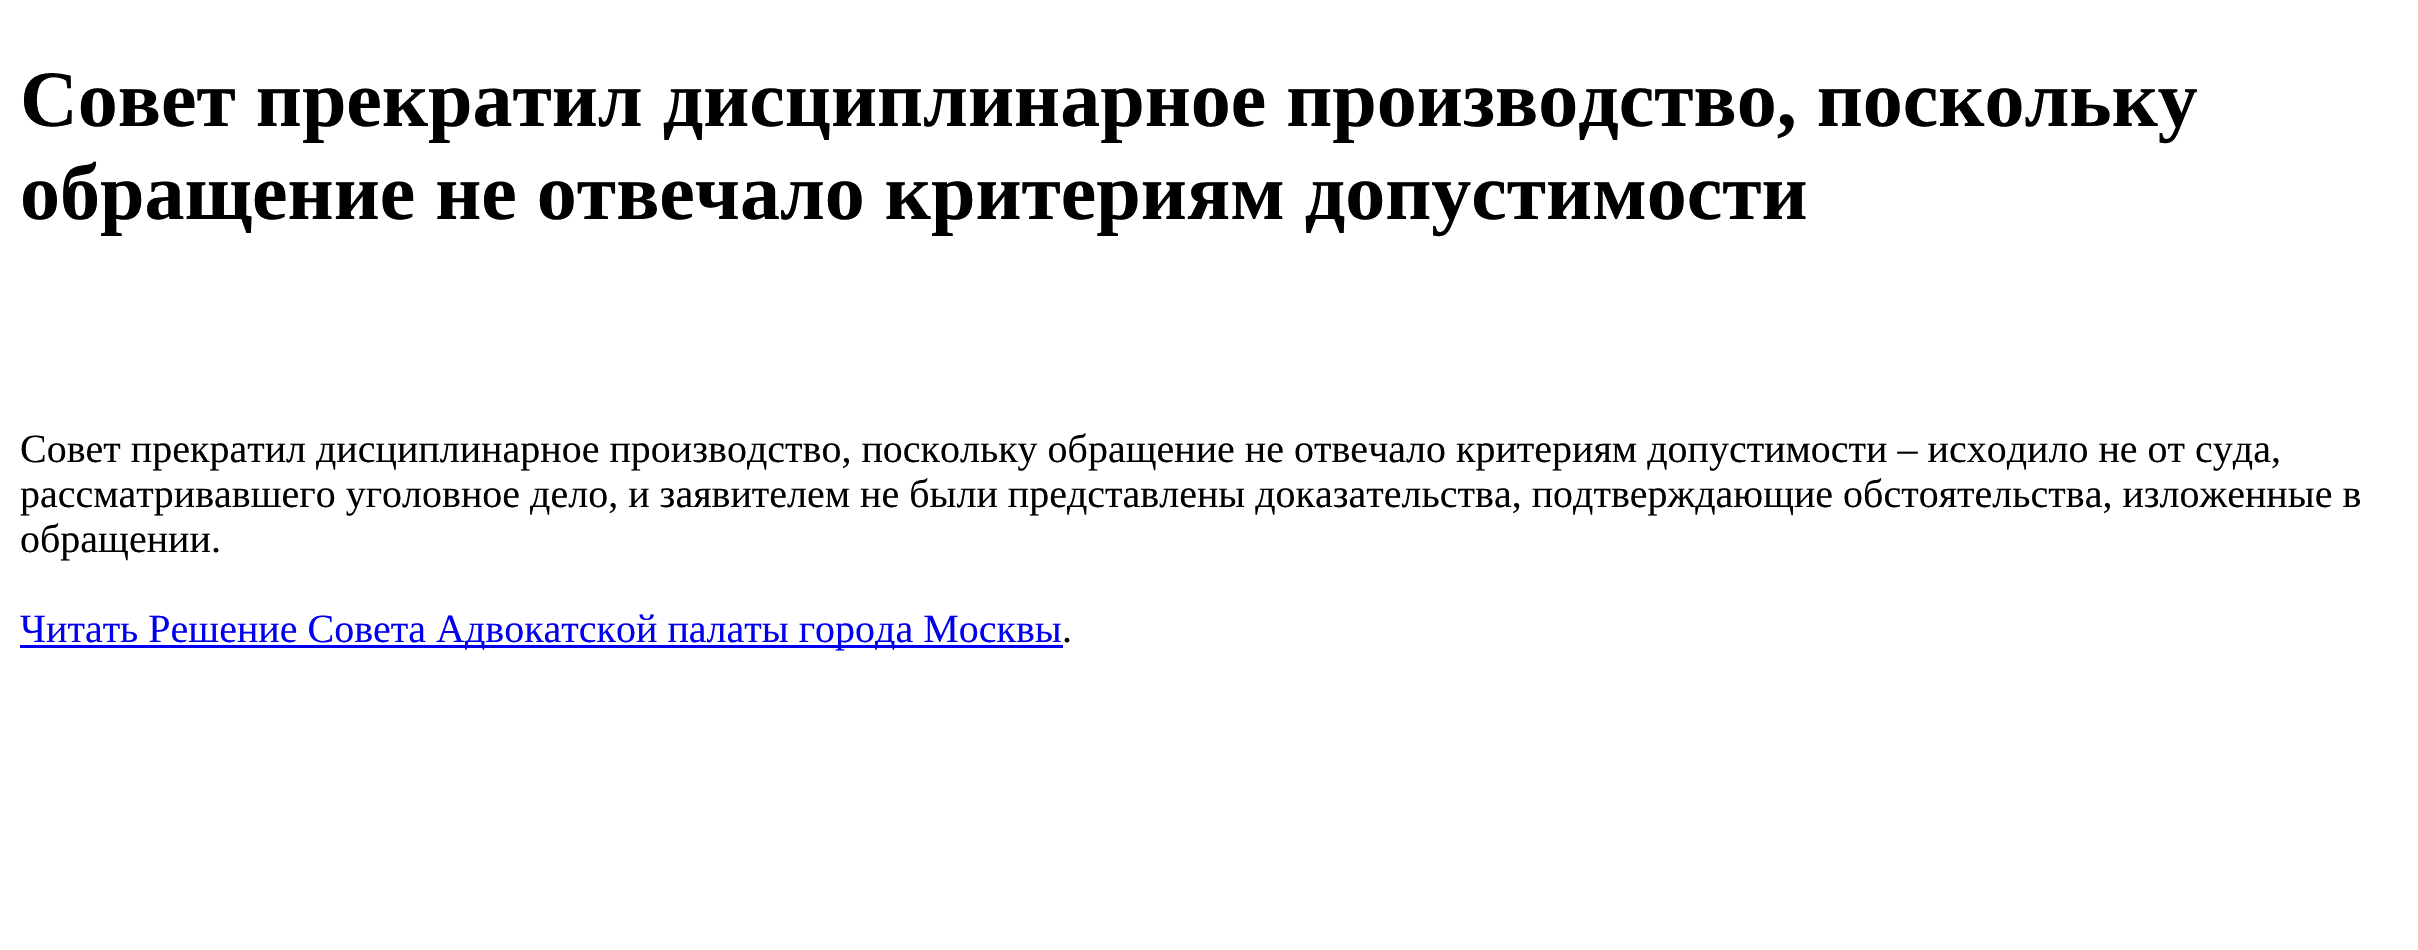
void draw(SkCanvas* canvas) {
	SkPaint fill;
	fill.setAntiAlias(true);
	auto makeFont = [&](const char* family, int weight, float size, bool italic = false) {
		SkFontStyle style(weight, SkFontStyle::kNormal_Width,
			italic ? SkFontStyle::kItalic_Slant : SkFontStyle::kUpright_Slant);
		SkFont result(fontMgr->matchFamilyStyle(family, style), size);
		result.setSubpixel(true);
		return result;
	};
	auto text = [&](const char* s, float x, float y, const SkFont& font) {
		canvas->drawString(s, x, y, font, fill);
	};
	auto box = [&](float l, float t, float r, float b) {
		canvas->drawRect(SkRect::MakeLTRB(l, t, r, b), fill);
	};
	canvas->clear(0xFFFFFFFF);
	fill.setColor(0xFF0000EE);
	box(20, 645, 1063, 648);
	auto font1 = makeFont("Liberation Serif", 700, 80);
	fill.setColor(0xFF000000);
	text("Совет прекратил дисциплинарное производство, поскольку", 20, 126, font1);
	text("обращение не отвечало критериям допустимости", 20, 219, font1);
	auto font2 = makeFont("Liberation Serif", 400, 40);
	text("Совет прекратил дисциплинарное производство, поскольку обращение не отвечало критериям допустимости – исходило не от суда,", 20, 462, font2);
	text("рассматривавшего уголовное дело, и заявителем не были представлены доказательства, подтверждающие обстоятельства, изложенные в", 20, 507, font2);
	text("обращении.", 20, 552, font2);
	fill.setColor(0xFF0000EE);
	text("Читать Решение Совета Адвокатской палаты города Москвы", 20, 642, font2);
	fill.setColor(0xFF000000);
	text(".", 1062, 642, font2);
}
